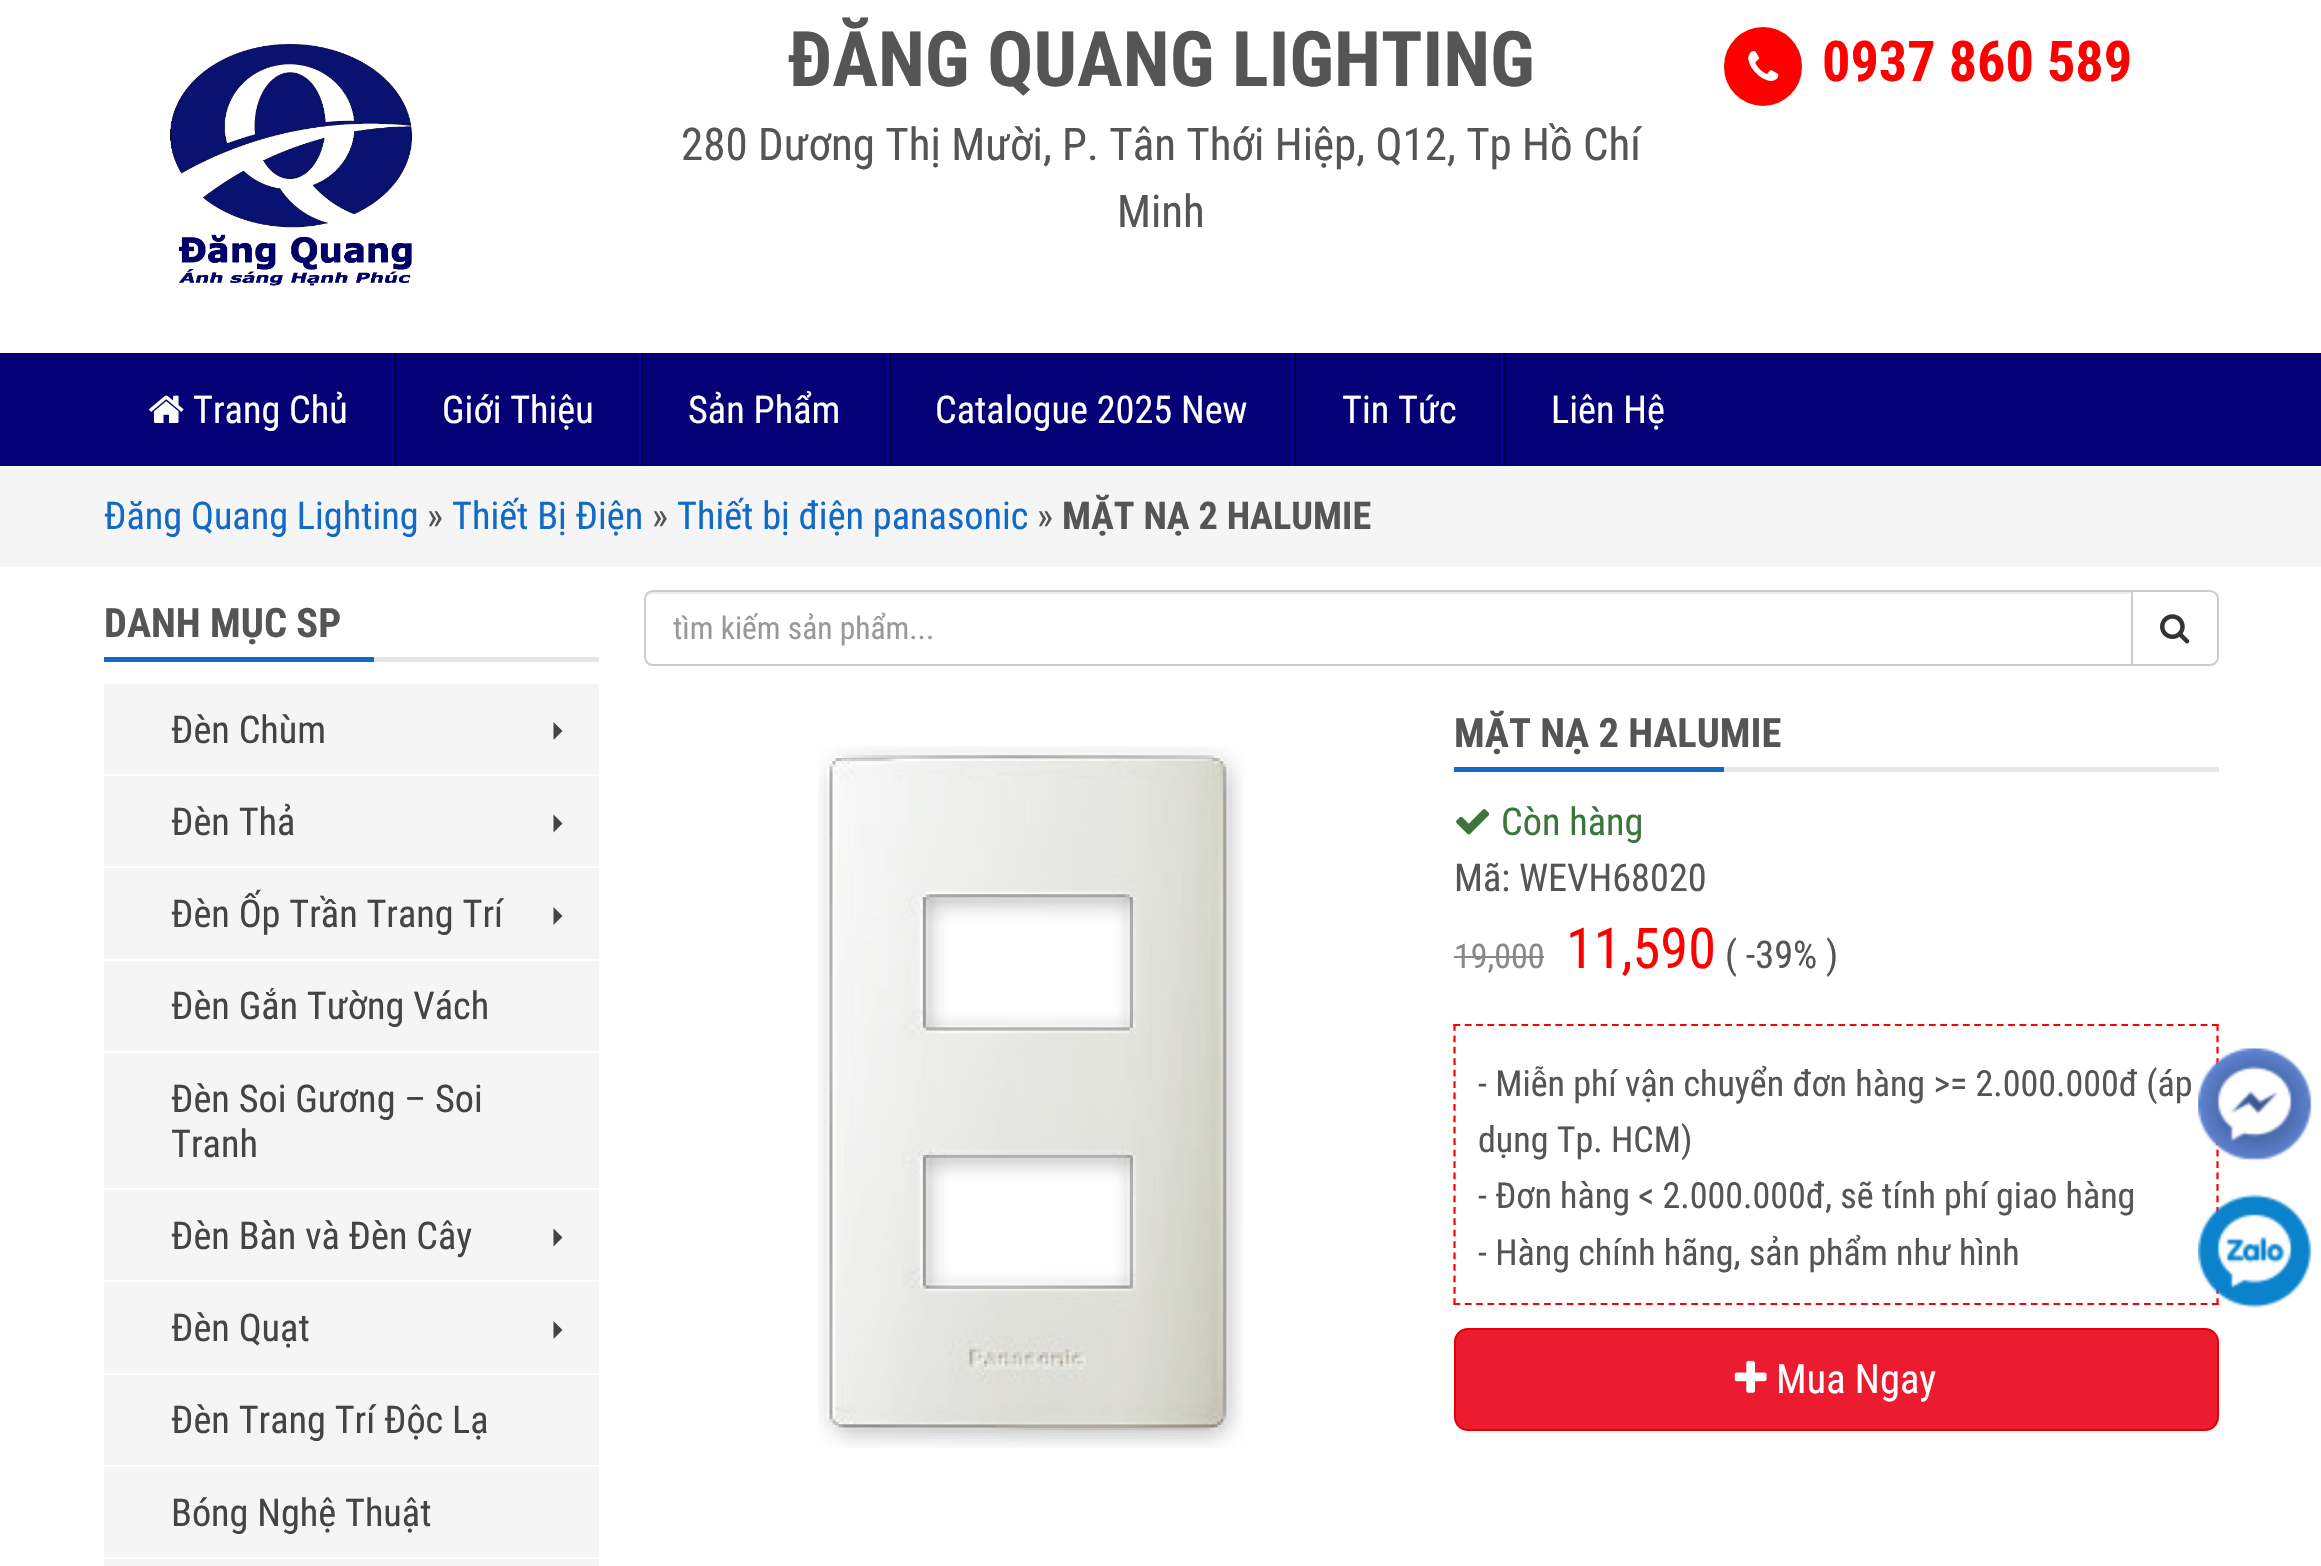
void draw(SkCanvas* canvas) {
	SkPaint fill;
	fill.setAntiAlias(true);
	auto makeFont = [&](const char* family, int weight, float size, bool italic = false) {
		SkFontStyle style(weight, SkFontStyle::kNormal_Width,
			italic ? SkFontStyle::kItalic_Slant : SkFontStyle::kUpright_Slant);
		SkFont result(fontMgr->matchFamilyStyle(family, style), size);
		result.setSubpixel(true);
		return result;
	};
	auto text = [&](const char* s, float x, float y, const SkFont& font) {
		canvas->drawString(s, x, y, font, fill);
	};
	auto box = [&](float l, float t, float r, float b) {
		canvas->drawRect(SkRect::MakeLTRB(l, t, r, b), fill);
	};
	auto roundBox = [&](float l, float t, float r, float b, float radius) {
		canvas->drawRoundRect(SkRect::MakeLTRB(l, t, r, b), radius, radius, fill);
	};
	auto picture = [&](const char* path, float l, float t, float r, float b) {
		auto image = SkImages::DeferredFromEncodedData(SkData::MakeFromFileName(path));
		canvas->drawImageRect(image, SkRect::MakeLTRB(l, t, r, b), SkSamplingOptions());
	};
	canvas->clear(0xFFFFFFFF);
	picture("image0.png", 170, 44, 413, 286);
	fill.setColor(0xFFFF0000);
	roundBox(1724, 27, 1802, 106, 39);
	picture("image1.png", 1748, 51, 1779, 81);
	fill.setColor(0xFF040075);
	box(0, 353, 2321, 466);
	fill.setColor(0xFF060198);
	box(392, 353, 394, 466);
	picture("image2.png", 149, 395, 184, 423);
	box(639, 353, 641, 466);
	fill.setColor(0xFF050345);
	box(394, 353, 396, 466);
	fill.setColor(0xFF060198);
	box(887, 353, 889, 466);
	fill.setColor(0xFF050345);
	box(641, 353, 643, 466);
	fill.setColor(0xFF060198);
	box(1292, 353, 1294, 466);
	fill.setColor(0xFF050345);
	box(889, 353, 891, 466);
	fill.setColor(0xFF060198);
	box(1501, 353, 1503, 466);
	fill.setColor(0xFF050345);
	box(1294, 353, 1296, 466);
	box(1503, 353, 1505, 466);
	fill.setColor(0xFFF5F5F5);
	box(0, 466, 2321, 567);
	fill.setColor(0xFFE6E6E6);
	box(374, 657, 599, 662);
	fill.setColor(0xFF116AC6);
	box(104, 657, 374, 662);
	fill.setColor(0xFFF5F5F5);
	box(104, 684, 599, 774);
	fill.setColor(0xFF444444);
	canvas->drawPath(SkPathBuilder().moveTo(553.5f, 740).lineTo(553.5f, 722).lineTo(562.5f, 731).close().detach(), fill);
	fill.setColor(0xFFF5F5F5);
	box(104, 776, 599, 959);
	fill.setColor(0xFFFFFFFF);
	box(104, 866, 599, 868);
	fill.setColor(0xFF444444);
	canvas->drawPath(SkPathBuilder().moveTo(553.5f, 832.5f).lineTo(553.5f, 814.5f).lineTo(562.5f, 823.5f).close().detach(), fill);
	canvas->drawPath(SkPathBuilder().moveTo(553.5f, 925).lineTo(553.5f, 907).lineTo(562.5f, 916).close().detach(), fill);
	fill.setColor(0xFFF5F5F5);
	box(104, 961, 599, 1051);
	box(104, 1053, 599, 1188);
	box(104, 1190, 599, 1373);
	fill.setColor(0xFFFFFFFF);
	box(104, 1280, 599, 1282);
	fill.setColor(0xFF444444);
	canvas->drawPath(SkPathBuilder().moveTo(553.5f, 1246.5f).lineTo(553.5f, 1228.5f).lineTo(562.5f, 1237.5f).close().detach(), fill);
	canvas->drawPath(SkPathBuilder().moveTo(553.5f, 1339).lineTo(553.5f, 1321).lineTo(562.5f, 1330).close().detach(), fill);
	fill.setColor(0xFFF5F5F5);
	box(104, 1375, 599, 1465);
	box(104, 1467, 599, 1557);
	box(104, 1559, 599, 1566);
	fill.setColor(0xFFECECEC);
	canvas->drawPath(SkPathBuilder().moveTo(652, 594).lineTo(2131, 594).lineTo(2131, 592).lineTo(653, 592).cubicTo(648, 592, 646, 597, 646, 601).cubicTo(646, 597, 649, 594, 652, 594).close().detach(), fill);
	fill.setStyle(SkPaint::kStroke_Style);
	fill.setStrokeWidth(2);
	fill.setColor(0xFFCCCCCC);
	canvas->drawPath(SkPathBuilder().moveTo(653, 591).lineTo(2132, 591).lineTo(2132, 665).lineTo(653, 665).cubicTo(648.5f, 665, 645, 661.5f, 645, 657).lineTo(645, 599).cubicTo(645, 594.5f, 648.5f, 591, 653, 591).close().detach(), fill);
	fill.setStyle(SkPaint::kFill_Style);
	fill.setColor(0xFFFFFFFF);
	canvas->drawPath(SkPathBuilder().moveTo(2132, 591).lineTo(2210, 591).cubicTo(2214.5f, 591, 2218, 594.5f, 2218, 599).lineTo(2218, 657).cubicTo(2218, 661.5f, 2214.5f, 665, 2210, 665).lineTo(2132, 665).close().detach(), fill);
	fill.setStyle(SkPaint::kStroke_Style);
	fill.setColor(0xFFCCCCCC);
	canvas->drawPath(SkPathBuilder().moveTo(2132, 591).lineTo(2210, 591).cubicTo(2214.5f, 591, 2218, 594.5f, 2218, 599).lineTo(2218, 657).cubicTo(2218, 661.5f, 2214.5f, 665, 2210, 665).lineTo(2132, 665).close().detach(), fill);
	picture("image3.png", 2160, 614, 2190, 644);
	picture("image4.png", 818, 746, 1244, 1448);
	fill.setStyle(SkPaint::kFill_Style);
	fill.setColor(0xFFE6E6E6);
	box(1724, 767, 2219, 772);
	fill.setColor(0xFF116AC6);
	box(1454, 767, 1724, 772);
	picture("image5.png", 1456, 809, 1490, 835);
	fill.setColor(0xFF888888);
	box(1454, 956, 1544, 958);
	fill.setStyle(SkPaint::kStroke_Style);
	fill.setStrokeWidth(2.2f);
	fill.setColor(0xFFFF0000);
	fill.setPathEffect(SkDashPathEffect::Make({{6.75f, 4.57f}}, 0));
	canvas->drawPath(SkPathBuilder().moveTo(1453.5f, 1025).lineTo(2218.5f, 1025).detach(), fill);
	fill.setPathEffect(nullptr);
	fill.setPathEffect(SkDashPathEffect::Make({{6.75f, 4.68f}}, 0));
	canvas->drawPath(SkPathBuilder().moveTo(2217.5f, 1024).lineTo(2217.5f, 1305).detach(), fill);
	fill.setPathEffect(nullptr);
	fill.setPathEffect(SkDashPathEffect::Make({{6.75f, 4.57f}}, 0));
	canvas->drawPath(SkPathBuilder().moveTo(1453.5f, 1304).lineTo(2218.5f, 1304).detach(), fill);
	fill.setPathEffect(nullptr);
	fill.setPathEffect(SkDashPathEffect::Make({{6.75f, 4.68f}}, 0));
	canvas->drawPath(SkPathBuilder().moveTo(1454.5f, 1024).lineTo(1454.5f, 1305).detach(), fill);
	fill.setPathEffect(nullptr);
	fill.setStyle(SkPaint::kFill_Style);
	fill.setColor(0xFFED1B2F);
	canvas->drawRoundRect(SkRect::MakeLTRB(1455, 1329, 2218, 1430), 13, 13, fill);
	fill.setStyle(SkPaint::kStroke_Style);
	fill.setStrokeWidth(2);
	fill.setColor(0xFFE60000);
	canvas->drawRoundRect(SkRect::MakeLTRB(1455, 1329, 2218, 1430), 13, 13, fill);
	picture("image6.png", 1734, 1360, 1767, 1393);
	picture("image7.png", 2198, 1048, 2312, 1161);
	picture("image8.png", 2198, 1194, 2312, 1308);
	auto font1 = makeFont("Roboto Condensed", 700, 76.5f);
	fill.setStyle(SkPaint::kFill_Style);
	fill.setColor(0xFF555555);
	text("ĐĂNG QUANG LIGHTING", 788, 86, font1);
	auto font2 = makeFont("Roboto Condensed", 400, 45);
	text("280 Dương Thị Mười, P. Tân Thới Hiệp, Q12, Tp Hồ Chí", 681, 160, font2);
	text("Minh", 1117, 227, font2);
	auto font3 = makeFont("Roboto Condensed", 700, 56.25f);
	fill.setColor(0xFFFF0000);
	text("0937 860 589", 1822, 81, font3);
	auto font4 = makeFont("Roboto Condensed", 400, 38.25f);
	fill.setColor(0xFFFFFFFF);
	text("Trang Chủ", 193, 423, font4);
	text("Giới Thiệu", 442, 423, font4);
	text("Sản Phẩm", 688, 423, font4);
	text("Catalogue 2025 New", 935, 423, font4);
	text("Tin Tức", 1342, 423, font4);
	text("Liên Hệ", 1551, 423, font4);
	fill.setColor(0xFF116AC6);
	text("Đăng Quang Lighting", 104, 529, font4);
	fill.setColor(0xFF555555);
	text("»", 427, 529, font4);
	fill.setColor(0xFF116AC6);
	text("Thiết Bị Điện", 452, 529, font4);
	fill.setColor(0xFF555555);
	text("»", 652, 529, font4);
	fill.setColor(0xFF116AC6);
	text("Thiết bị điện panasonic", 677, 529, font4);
	fill.setColor(0xFF555555);
	text("»", 1037, 529, font4);
	auto font5 = makeFont("Roboto Condensed", 700, 38.25f);
	text("MẶT NẠ 2 HALUMIE", 1062, 529, font5);
	auto font6 = makeFont("Roboto Condensed", 700, 40.5f);
	text("DANH MỤC SP", 104, 637, font6);
	fill.setColor(0xFF444444);
	text("Đèn Chùm", 171, 743, font4);
	text("Đèn Thả", 171, 835, font4);
	text("Đèn Ốp Trần Trang Trí", 171, 927, font4);
	text("Đèn Gắn Tường Vách", 171, 1019, font4);
	text("Đèn Soi Gương – Soi", 171, 1112, font4);
	text("Tranh", 171, 1157, font4);
	text("Đèn Bàn và Đèn Cây", 171, 1249, font4);
	text("Đèn Quạt", 171, 1341, font4);
	text("Đèn Trang Trí Độc Lạ", 171, 1433, font4);
	text("Bóng Nghệ Thuật", 171, 1526, font4);
	auto font7 = makeFont("Roboto Condensed", 400, 31.5f);
	fill.setColor(0xFF999999);
	text("tìm kiếm sản phẩm...", 673, 639, font7);
	fill.setColor(0xFF555555);
	text("MẶT NẠ 2 HALUMIE", 1454, 747, font6);
	fill.setColor(0xFF3C763D);
	text("Còn hàng", 1501, 835, font4);
	fill.setColor(0xFF555555);
	text("Mã: WEVH68020", 1454, 891, font4);
	auto font8 = makeFont("Roboto Condensed", 400, 34);
	fill.setColor(0xFF888888);
	text("19,000", 1454, 968, font8);
	auto font9 = makeFont("Roboto Condensed", 400, 56.25f);
	fill.setColor(0xFFFF0000);
	text("11,590", 1566, 968, font9);
	fill.setColor(0xFF555555);
	text("( -39% )", 1725, 968, font4);
	auto font10 = makeFont("Roboto Condensed", 400, 36);
	text("- Miễn phí vận chuyển đơn hàng >= 2.000.000đ (áp", 1478, 1096, font10);
	text("dụng Tp. HCM)", 1478, 1152, font10);
	text("- Đơn hàng < 2.000.000đ, sẽ tính phí giao hàng", 1478, 1208, font10);
	text("- Hàng chính hãng, sản phẩm như hình", 1478, 1265, font10);
	auto font11 = makeFont("Roboto Condensed", 400, 40.5f);
	fill.setColor(0xFFFFFFFF);
	text("Mua Ngay", 1776, 1393, font11);
}
